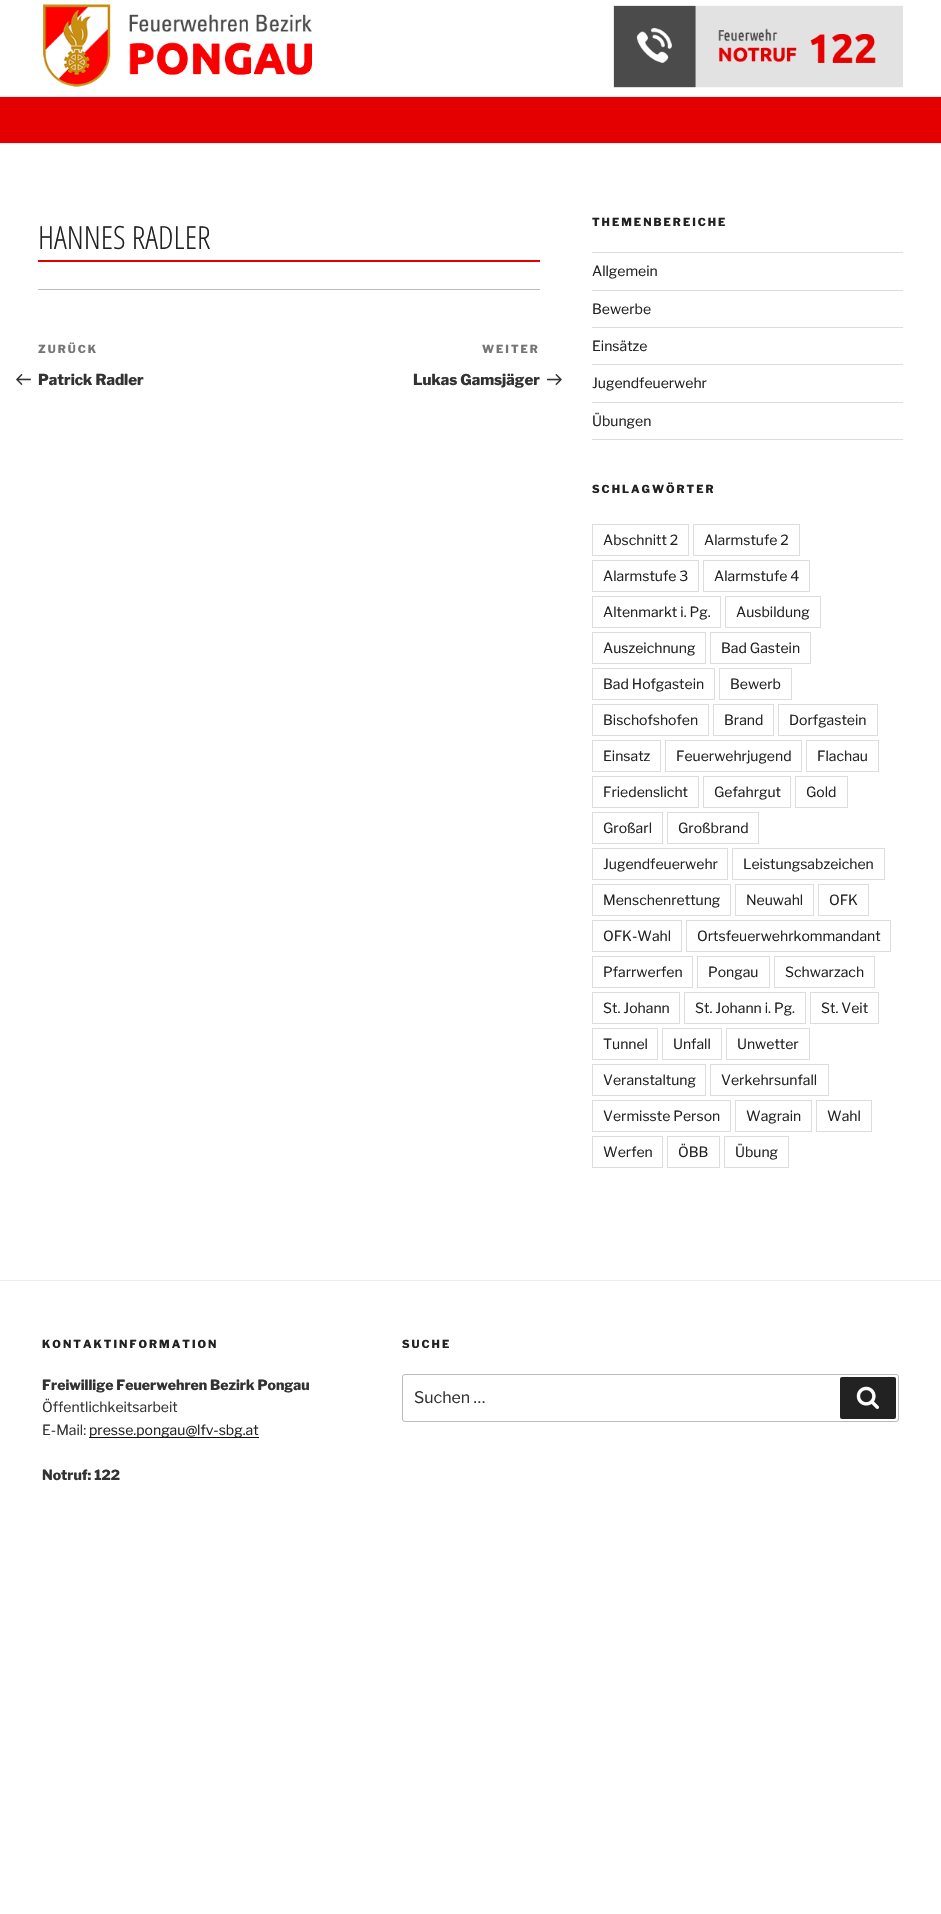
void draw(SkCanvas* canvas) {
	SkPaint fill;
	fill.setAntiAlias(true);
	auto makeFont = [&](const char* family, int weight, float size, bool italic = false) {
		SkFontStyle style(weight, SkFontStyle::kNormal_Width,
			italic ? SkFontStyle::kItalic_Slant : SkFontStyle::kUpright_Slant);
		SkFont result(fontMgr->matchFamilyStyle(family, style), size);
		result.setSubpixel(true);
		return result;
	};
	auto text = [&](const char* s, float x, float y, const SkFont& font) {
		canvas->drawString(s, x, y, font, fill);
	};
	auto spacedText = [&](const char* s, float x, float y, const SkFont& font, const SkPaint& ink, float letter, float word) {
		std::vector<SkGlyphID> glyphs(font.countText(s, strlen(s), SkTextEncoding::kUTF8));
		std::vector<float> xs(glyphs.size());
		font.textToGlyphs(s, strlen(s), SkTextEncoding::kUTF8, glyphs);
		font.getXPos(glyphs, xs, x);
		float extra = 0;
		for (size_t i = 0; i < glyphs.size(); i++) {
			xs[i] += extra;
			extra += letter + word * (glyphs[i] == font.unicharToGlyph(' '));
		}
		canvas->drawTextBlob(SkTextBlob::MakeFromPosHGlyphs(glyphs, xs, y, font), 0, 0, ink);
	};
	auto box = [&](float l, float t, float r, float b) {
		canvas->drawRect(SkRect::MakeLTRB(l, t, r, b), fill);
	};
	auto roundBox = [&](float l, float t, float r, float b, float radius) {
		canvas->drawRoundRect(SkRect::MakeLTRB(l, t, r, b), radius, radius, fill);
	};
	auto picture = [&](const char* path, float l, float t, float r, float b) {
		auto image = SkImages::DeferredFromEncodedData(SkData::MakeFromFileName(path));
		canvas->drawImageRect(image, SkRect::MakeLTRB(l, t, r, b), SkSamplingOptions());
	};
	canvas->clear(0xFFFFFFFF);
	picture("image0.png", 43, 4, 312, 87);
	picture("image1.png", 613, 5, 903, 88);
	fill.setColor(0xFFE50000);
	box(0, 97, 941, 143);
	fill.setColor(0xFFEEEEEE);
	box(0, 96, 941, 97);
	box(0, 143, 941, 144);
	fill.setColor(0xFFE50000);
	box(38, 260, 540, 262);
	fill.setColor(0xFFBBBBBB);
	box(38, 289, 540, 290);
	picture("image2.png", 16, 374, 31, 385);
	picture("image3.png", 547, 374, 562, 386);
	fill.setColor(0xFFDDDDDD);
	box(592, 252, 903, 253);
	box(592, 290, 903, 291);
	box(592, 327, 903, 328);
	box(592, 364, 903, 365);
	box(592, 402, 903, 403);
	box(592, 439, 903, 440);
	fill.setStyle(SkPaint::kStroke_Style);
	fill.setStrokeWidth(1);
	canvas->drawRect(SkRect::MakeLTRB(592.5f, 524.5f, 688.5f, 555.5f), fill);
	canvas->drawRect(SkRect::MakeLTRB(693.5f, 524.5f, 799.5f, 555.5f), fill);
	canvas->drawRect(SkRect::MakeLTRB(592.5f, 560.5f, 698.5f, 591.5f), fill);
	canvas->drawRect(SkRect::MakeLTRB(703.5f, 560.5f, 809.5f, 591.5f), fill);
	canvas->drawRect(SkRect::MakeLTRB(592.5f, 596.5f, 720.5f, 627.5f), fill);
	canvas->drawRect(SkRect::MakeLTRB(725.5f, 596.5f, 820.5f, 627.5f), fill);
	canvas->drawRect(SkRect::MakeLTRB(592.5f, 632.5f, 705.5f, 663.5f), fill);
	canvas->drawRect(SkRect::MakeLTRB(710.5f, 632.5f, 810.5f, 663.5f), fill);
	canvas->drawRect(SkRect::MakeLTRB(592.5f, 668.5f, 714.5f, 699.5f), fill);
	canvas->drawRect(SkRect::MakeLTRB(719.5f, 668.5f, 791.5f, 699.5f), fill);
	canvas->drawRect(SkRect::MakeLTRB(592.5f, 704.5f, 708.5f, 735.5f), fill);
	canvas->drawRect(SkRect::MakeLTRB(713.5f, 704.5f, 773.5f, 735.5f), fill);
	canvas->drawRect(SkRect::MakeLTRB(778.5f, 704.5f, 877.5f, 735.5f), fill);
	canvas->drawRect(SkRect::MakeLTRB(592.5f, 740.5f, 660.5f, 771.5f), fill);
	canvas->drawRect(SkRect::MakeLTRB(665.5f, 740.5f, 801.5f, 771.5f), fill);
	canvas->drawRect(SkRect::MakeLTRB(806.5f, 740.5f, 878.5f, 771.5f), fill);
	canvas->drawRect(SkRect::MakeLTRB(592.5f, 776.5f, 698.5f, 807.5f), fill);
	canvas->drawRect(SkRect::MakeLTRB(703.5f, 776.5f, 790.5f, 807.5f), fill);
	canvas->drawRect(SkRect::MakeLTRB(795.5f, 776.5f, 847.5f, 807.5f), fill);
	canvas->drawRect(SkRect::MakeLTRB(592.5f, 812.5f, 662.5f, 843.5f), fill);
	canvas->drawRect(SkRect::MakeLTRB(667.5f, 812.5f, 758.5f, 843.5f), fill);
	canvas->drawRect(SkRect::MakeLTRB(592.5f, 848.5f, 727.5f, 879.5f), fill);
	canvas->drawRect(SkRect::MakeLTRB(732.5f, 848.5f, 884.5f, 879.5f), fill);
	canvas->drawRect(SkRect::MakeLTRB(592.5f, 884.5f, 730.5f, 915.5f), fill);
	canvas->drawRect(SkRect::MakeLTRB(735.5f, 884.5f, 813.5f, 915.5f), fill);
	canvas->drawRect(SkRect::MakeLTRB(818.5f, 884.5f, 868.5f, 915.5f), fill);
	canvas->drawRect(SkRect::MakeLTRB(592.5f, 920.5f, 681.5f, 951.5f), fill);
	canvas->drawRect(SkRect::MakeLTRB(686.5f, 920.5f, 890.5f, 951.5f), fill);
	canvas->drawRect(SkRect::MakeLTRB(592.5f, 956.5f, 692.5f, 987.5f), fill);
	canvas->drawRect(SkRect::MakeLTRB(697.5f, 956.5f, 769.5f, 987.5f), fill);
	canvas->drawRect(SkRect::MakeLTRB(774.5f, 956.5f, 874.5f, 987.5f), fill);
	canvas->drawRect(SkRect::MakeLTRB(592.5f, 992.5f, 679.5f, 1023.5f), fill);
	canvas->drawRect(SkRect::MakeLTRB(684.5f, 992.5f, 805.5f, 1023.5f), fill);
	canvas->drawRect(SkRect::MakeLTRB(810.5f, 992.5f, 878.5f, 1023.5f), fill);
	canvas->drawRect(SkRect::MakeLTRB(592.5f, 1028.5f, 657.5f, 1059.5f), fill);
	canvas->drawRect(SkRect::MakeLTRB(662.5f, 1028.5f, 721.5f, 1059.5f), fill);
	canvas->drawRect(SkRect::MakeLTRB(726.5f, 1028.5f, 809.5f, 1059.5f), fill);
	canvas->drawRect(SkRect::MakeLTRB(592.5f, 1064.5f, 705.5f, 1095.5f), fill);
	canvas->drawRect(SkRect::MakeLTRB(710.5f, 1064.5f, 828.5f, 1095.5f), fill);
	canvas->drawRect(SkRect::MakeLTRB(592.5f, 1100.5f, 730.5f, 1131.5f), fill);
	canvas->drawRect(SkRect::MakeLTRB(735.5f, 1100.5f, 811.5f, 1131.5f), fill);
	canvas->drawRect(SkRect::MakeLTRB(816.5f, 1100.5f, 871.5f, 1131.5f), fill);
	canvas->drawRect(SkRect::MakeLTRB(592.5f, 1136.5f, 662.5f, 1167.5f), fill);
	canvas->drawRect(SkRect::MakeLTRB(667.5f, 1136.5f, 719.5f, 1167.5f), fill);
	canvas->drawRect(SkRect::MakeLTRB(724.5f, 1136.5f, 788.5f, 1167.5f), fill);
	fill.setStyle(SkPaint::kFill_Style);
	fill.setColor(0xFFEEEEEE);
	box(0, 1280, 941, 1281);
	fill.setColor(0xFF0F0F0F);
	box(89, 1437, 259, 1438);
	fill.setStyle(SkPaint::kStroke_Style);
	fill.setColor(0xFFBBBBBB);
	canvas->drawRoundRect(SkRect::MakeLTRB(402.5f, 1374.5f, 898.5f, 1421.5f), 2.5f, 2.5f, fill);
	fill.setStyle(SkPaint::kFill_Style);
	fill.setColor(0xFF222222);
	roundBox(840, 1377, 896, 1419, 2);
	picture("image4.png", 856, 1386, 879, 1409);
	auto font1 = makeFont("Open Sans Condensed", 300, 32);
	text("HANNES RADLER", 38, 249, font1);
	auto font2 = makeFont("Libre Franklin", 100, 11);
	fill.setColor(0xFF767676);
	spacedText("ZURÜCK", 38, 353, font2, fill, 2, 0);
	auto font3 = makeFont("Libre Franklin", 100, 15);
	fill.setColor(0xFF333333);
	text("Patrick Radler", 38, 385, font3);
	fill.setColor(0xFF767676);
	spacedText("WEITER", 482, 353, font2, fill, 2, 0);
	fill.setColor(0xFF333333);
	text("Lukas Gamsjäger", 413, 385, font3);
	fill.setColor(0xFF222222);
	spacedText("THEMENBEREICHE", 592, 226, font2, fill, 2, 0);
	auto font4 = makeFont("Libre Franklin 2", 100, 14);
	text("Allgemein", 592, 276, font4);
	text("Bewerbe", 592, 314, font4);
	text("Einsätze", 592, 351, font4);
	text("Jugendfeuerwehr", 592, 388, font4);
	text("Übungen", 592, 426, font4);
	spacedText("SCHLAGWÖRTER", 592, 493, font2, fill, 2, 0);
	text("Abschnitt 2", 603, 545, font4);
	text("Alarmstufe 2", 704, 545, font4);
	text("Alarmstufe 3", 603, 581, font4);
	text("Alarmstufe 4", 714, 581, font4);
	text("Altenmarkt i. Pg.", 603, 617, font4);
	text("Ausbildung", 736, 617, font4);
	text("Auszeichnung", 603, 653, font4);
	text("Bad Gastein", 721, 653, font4);
	text("Bad Hofgastein", 603, 689, font4);
	text("Bewerb", 730, 689, font4);
	text("Bischofshofen", 603, 725, font4);
	text("Brand", 724, 725, font4);
	text("Dorfgastein", 789, 725, font4);
	text("Einsatz", 603, 761, font4);
	text("Feuerwehrjugend", 676, 761, font4);
	text("Flachau", 817, 761, font4);
	text("Friedenslicht", 603, 797, font4);
	text("Gefahrgut", 714, 797, font4);
	text("Gold", 806, 797, font4);
	text("Großarl", 603, 833, font4);
	text("Großbrand", 678, 833, font4);
	text("Jugendfeuerwehr", 603, 869, font4);
	text("Leistungsabzeichen", 743, 869, font4);
	text("Menschenrettung", 603, 905, font4);
	text("Neuwahl", 746, 905, font4);
	text("OFK", 829, 905, font4);
	text("OFK-Wahl", 603, 941, font4);
	text("Ortsfeuerwehrkommandant", 697, 941, font4);
	text("Pfarrwerfen", 603, 977, font4);
	text("Pongau", 708, 977, font4);
	text("Schwarzach", 785, 977, font4);
	text("St. Johann", 603, 1013, font4);
	text("St. Johann i. Pg.", 695, 1013, font4);
	text("St. Veit", 821, 1013, font4);
	text("Tunnel", 603, 1049, font4);
	text("Unfall", 673, 1049, font4);
	text("Unwetter", 737, 1049, font4);
	text("Veranstaltung", 603, 1085, font4);
	text("Verkehrsunfall", 721, 1085, font4);
	text("Vermisste Person", 603, 1121, font4);
	text("Wagrain", 746, 1121, font4);
	text("Wahl", 827, 1121, font4);
	text("Werfen", 603, 1157, font4);
	text("ÖBB", 678, 1157, font4);
	text("Übung", 735, 1157, font4);
	spacedText("KONTAKTINFORMATION", 42, 1348, font2, fill, 2, 0);
	auto font5 = makeFont("Libre Franklin", 100, 14);
	fill.setColor(0xFF333333);
	text("Freiwillige Feuerwehren Bezirk Pongau", 42, 1390, font5);
	text("Öffentlichkeitsarbeit", 42, 1412, font4);
	text("E-Mail:", 42, 1435, font4);
	fill.setColor(0xFF222222);
	text("presse.pongau@lfv-sbg.at", 89, 1435, font4);
	fill.setColor(0xFF333333);
	text("Notruf: 122", 42, 1480, font5);
	fill.setColor(0xFF222222);
	spacedText("SUCHE", 402, 1348, font2, fill, 2, 0);
	auto font6 = makeFont("Libre Franklin 2", 100, 16);
	fill.setColor(0xFF333333);
	text("Suchen …", 414, 1403, font6);
}
